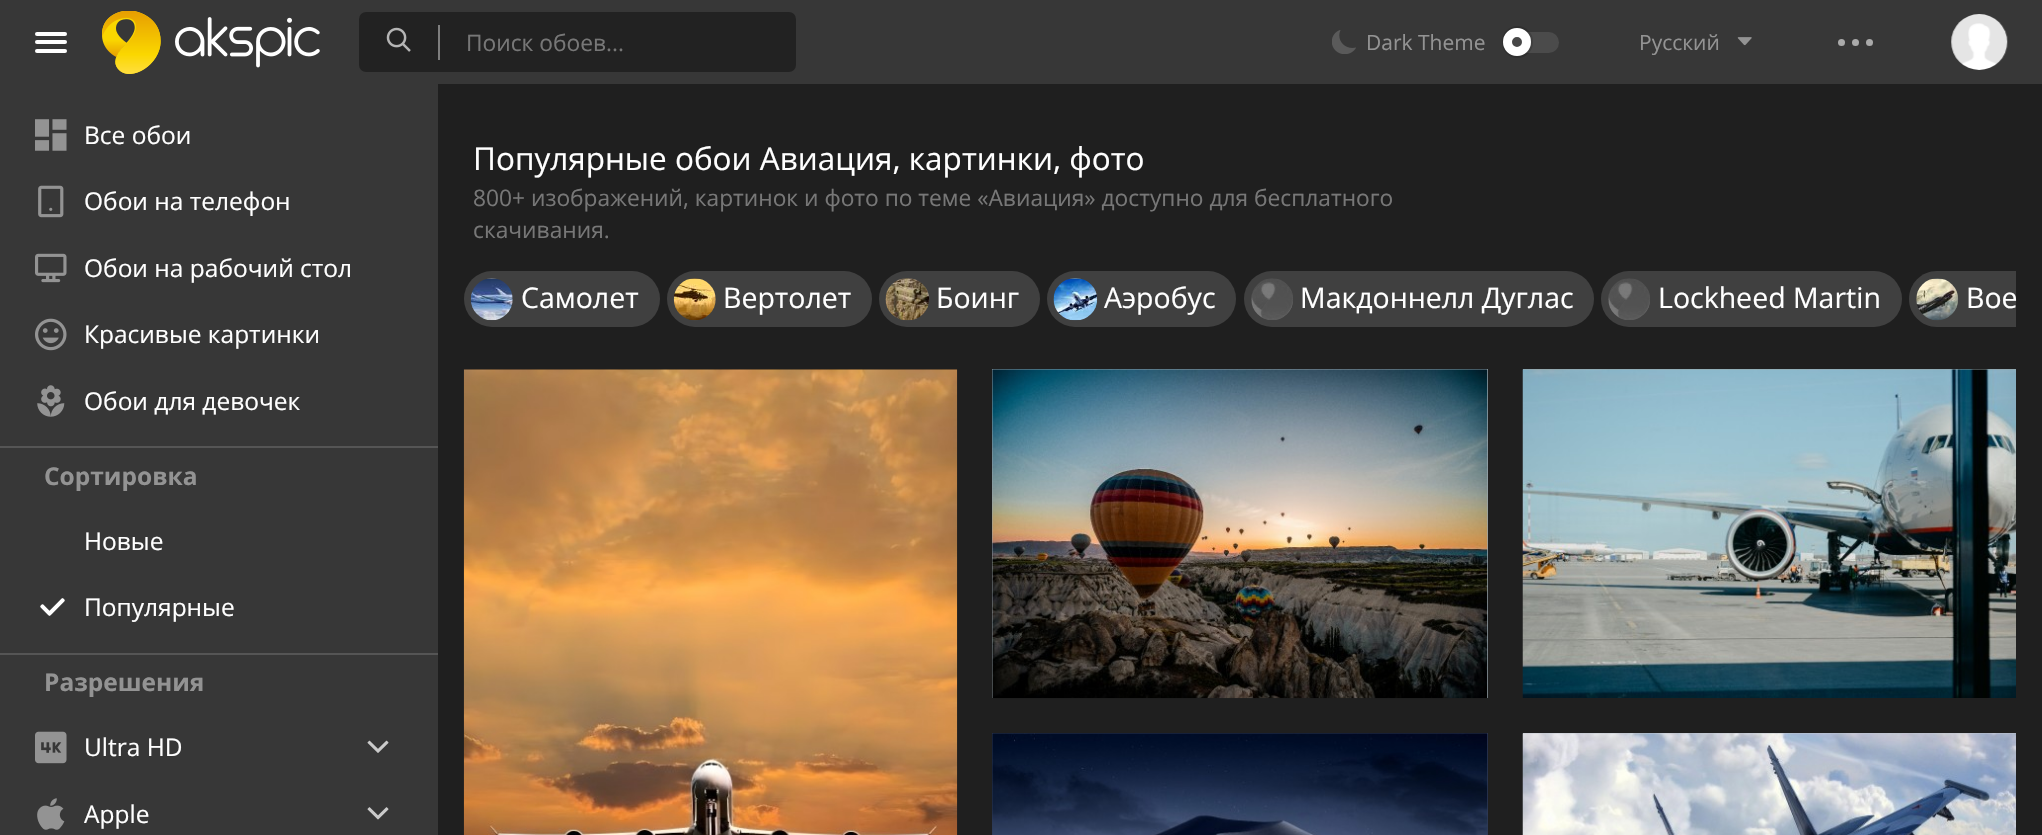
void draw(SkCanvas* canvas) {
	SkPaint fill;
	fill.setAntiAlias(true);
	auto makeFont = [&](const char* family, int weight, float size, bool italic = false) {
		SkFontStyle style(weight, SkFontStyle::kNormal_Width,
			italic ? SkFontStyle::kItalic_Slant : SkFontStyle::kUpright_Slant);
		SkFont result(fontMgr->matchFamilyStyle(family, style), size);
		result.setSubpixel(true);
		return result;
	};
	auto text = [&](const char* s, float x, float y, const SkFont& font) {
		canvas->drawString(s, x, y, font, fill);
	};
	auto box = [&](float l, float t, float r, float b) {
		canvas->drawRect(SkRect::MakeLTRB(l, t, r, b), fill);
	};
	auto roundBox = [&](float l, float t, float r, float b, float radius) {
		canvas->drawRoundRect(SkRect::MakeLTRB(l, t, r, b), radius, radius, fill);
	};
	auto picture = [&](const char* path, float l, float t, float r, float b) {
		auto image = SkImages::DeferredFromEncodedData(SkData::MakeFromFileName(path));
		canvas->drawImageRect(image, SkRect::MakeLTRB(l, t, r, b), SkSamplingOptions());
	};
	canvas->clear(0xFF1F1F1F);
	fill.setColor(0xFF373737);
	box(0, 0, 2042, 84);
	fill.setColor(0xFFFFFFFF);
	roundBox(35, 32, 67, 36, 2);
	roundBox(35, 40, 67, 44, 2);
	roundBox(35, 49, 67, 53, 2);
	picture("image0.png", 102, 11, 320, 74);
	fill.setColor(0xFF222222);
	roundBox(359, 12, 796, 72, 7);
	picture("image1.png", 386, 27, 411, 52);
	fill.setColor(0xFF7E7E7E);
	box(438, 25, 440, 60);
	picture("image2.png", 1332, 30, 1356, 54);
	fill.setColor(0xFF4B4B4B);
	roundBox(1503, 32, 1559, 53, 10.5f);
	fill.setStyle(SkPaint::kStroke_Style);
	fill.setStrokeWidth(2);
	fill.setColor(0x26000000);
	canvas->drawRoundRect(SkRect::MakeLTRB(1503, 27, 1532, 57), 14.5f, 14.5f, fill);
	fill.setStyle(SkPaint::kFill_Style);
	fill.setColor(0xFF474747);
	canvas->drawCircle(1517, 42, 9.5f, fill);
	fill.setStyle(SkPaint::kStroke_Style);
	fill.setStrokeWidth(9);
	fill.setColor(0xFFFFFFFF);
	canvas->drawCircle(1517, 42, 9.5f, fill);
	picture("image3.png", 1737, 37, 1752, 46);
	fill.setStyle(SkPaint::kFill_Style);
	fill.setColor(0xFFAAAAAA);
	canvas->drawCircle(1841.5f, 42.5f, 3.5f, fill);
	canvas->drawCircle(1855.5f, 42.5f, 3.5f, fill);
	canvas->drawCircle(1869.5f, 42.5f, 3.5f, fill);
	picture("image4.png", 1951, 14, 2008, 70);
	fill.setColor(0xFF373737);
	box(0, 84, 438, 835);
	picture("image5.png", 35, 119, 67, 151);
	picture("image6.png", 38, 185, 64, 218);
	picture("image7.png", 35, 253, 67, 283);
	picture("image8.png", 35, 318, 67, 351);
	picture("image9.png", 37, 385, 65, 417);
	fill.setColor(0xFF555555);
	box(0, 446, 438, 448);
	picture("image10.png", 40, 598, 65, 616);
	box(0, 653, 438, 655);
	picture("image11.png", 35, 731, 67, 764);
	picture("image12.png", 367, 740, 389, 753);
	picture("image13.png", 37, 798, 65, 830);
	picture("image14.png", 367, 807, 389, 820);
	fill.setColor(0xFF404040);
	roundBox(464, 271, 660, 327, 28);
	picture("image15.png", 470, 278, 513, 321);
	roundBox(667, 271, 872, 327, 28);
	picture("image16.png", 673, 278, 716, 321);
	roundBox(879, 271, 1040, 327, 28);
	picture("image17.png", 885, 278, 930, 321);
	roundBox(1047, 271, 1236, 327, 28);
	picture("image18.png", 1053, 278, 1098, 321);
	roundBox(1244, 271, 1594, 327, 28);
	picture("image19.png", 1251, 278, 1293, 320);
	roundBox(1601, 271, 1902, 327, 28);
	picture("image20.png", 1608, 278, 1650, 320);
	canvas->drawPath(SkPathBuilder().moveTo(1937, 271).lineTo(2016, 271).lineTo(2016, 327).lineTo(1937, 327).cubicTo(1921.5f, 327, 1909, 314.5f, 1909, 299).cubicTo(1909, 283.5f, 1921.5f, 271, 1937, 271).close().detach(), fill);
	picture("image21.png", 1916, 278, 1959, 321);
	fill.setColor(0xFF0C0D10);
	box(464, 369, 957, 370);
	picture("image22.png", 463, 369, 958, 835);
	fill.setColor(0xFF99A5AC);
	box(992, 369, 1488, 698);
	picture("image23.png", 992, 369, 1488, 699);
	fill.setColor(0xFF303A55);
	box(992, 733, 1488, 835);
	picture("image24.png", 992, 733, 1488, 835);
	fill.setColor(0xFF9BA4A2);
	box(1523, 369, 2016, 370);
	picture("image25.png", 1522, 369, 2016, 698);
	fill.setColor(0xFFC0C7D0);
	box(1523, 733, 2016, 734);
	picture("image26.png", 1522, 733, 2016, 835);
	auto font1 = makeFont("Open Sans", 400, 22.75f);
	fill.setColor(0xFF777777);
	text("Поиск обоев...", 466, 51, font1);
	auto font2 = makeFont("Open Sans", 400, 21);
	fill.setColor(0xFF939393);
	text("Dark Theme", 1366, 50, font2);
	text("Русский", 1639, 50, font2);
	auto font3 = makeFont("Open Sans", 400, 24.5f);
	fill.setColor(0xFFFFFFFF);
	text("Все обои", 84, 144, font3);
	text("Обои на телефон", 84, 210, font3);
	text("Обои на рабочий стол", 84, 277, font3);
	text("Красивые картинки", 84, 343, font3);
	text("Обои для девочек", 84, 410, font3);
	auto font4 = makeFont("Open Sans", 700, 24.5f);
	fill.setColor(0xFF939393);
	text("Сортировка", 44, 485, font4);
	fill.setColor(0xFFFFFFFF);
	text("Новые", 84, 550, font3);
	text("Популярные", 84, 616, font3);
	fill.setColor(0xFF939393);
	text("Разрешения", 44, 691, font4);
	fill.setColor(0xFFFFFFFF);
	text("Ultra HD", 84, 756, font3);
	text("Apple", 84, 823, font3);
	auto font5 = makeFont("Open Sans", 400, 31.5f);
	text("Популярные обои Авиация, картинки, фото", 473, 170, font5);
	fill.setColor(0xFF777777);
	text("800+ изображений, картинок и фото по теме «Авиация» доступно для бесплатного", 473, 206, font1);
	text("скачивания.", 473, 238, font1);
	auto font6 = makeFont("Open Sans", 400, 28.5f);
	fill.setColor(0xFFFFFFFF);
	text("Самолет", 521, 308, font6);
	text("Вертолет", 723, 308, font6);
	text("Боинг", 936, 308, font6);
	text("Аэробус", 1104, 308, font6);
	text("Макдоннелл Дуглас", 1300, 308, font6);
	text("Lockheed Martin", 1658, 308, font6);
	text("Вое", 1966, 308, font6);
}
